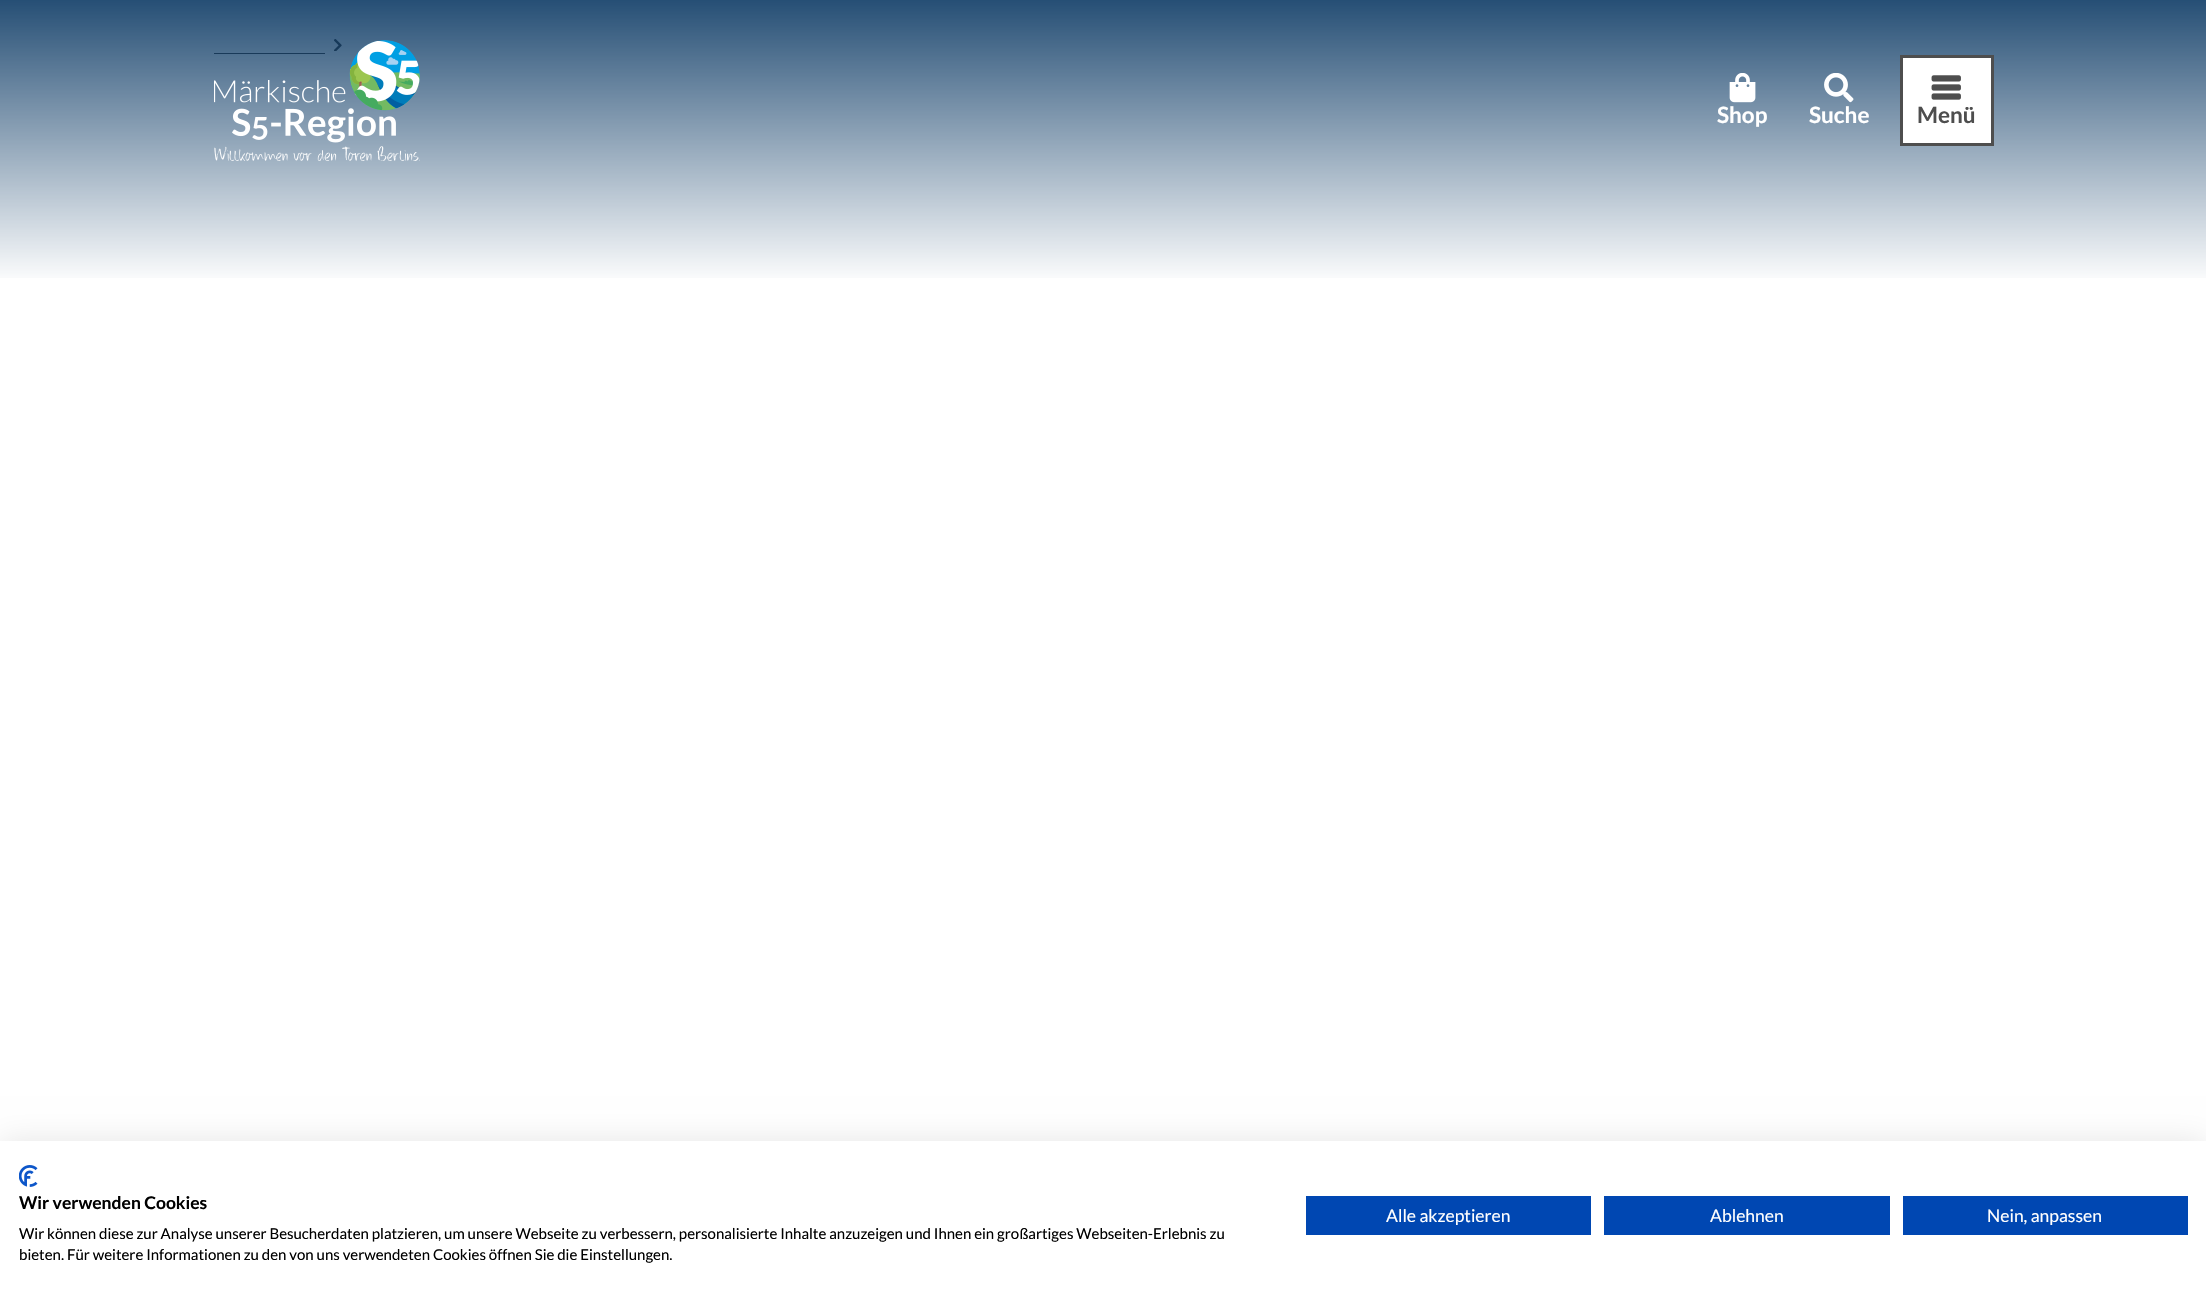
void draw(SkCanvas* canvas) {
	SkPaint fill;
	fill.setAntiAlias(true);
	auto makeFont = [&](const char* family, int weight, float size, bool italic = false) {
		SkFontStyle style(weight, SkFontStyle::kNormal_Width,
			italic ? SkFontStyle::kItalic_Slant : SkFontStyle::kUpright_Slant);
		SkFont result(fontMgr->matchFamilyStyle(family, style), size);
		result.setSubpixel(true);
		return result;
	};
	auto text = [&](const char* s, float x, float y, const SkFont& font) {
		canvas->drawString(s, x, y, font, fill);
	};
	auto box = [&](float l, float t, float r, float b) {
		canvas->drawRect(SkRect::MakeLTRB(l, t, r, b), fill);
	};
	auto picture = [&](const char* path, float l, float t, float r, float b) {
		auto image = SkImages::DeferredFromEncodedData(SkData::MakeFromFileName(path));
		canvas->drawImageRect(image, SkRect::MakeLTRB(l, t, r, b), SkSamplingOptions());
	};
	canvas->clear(0xFFFFFFFF);
	picture("image0.png", 334, 39, 342, 51);
	fill.setColor(0xFF4E4E4E);
	box(214, 53, 325, 54);
	{
		const SkColor colors[] = {0xD900305D, 0x0000305D};
		const float stops[] = {0, 1};
		const SkPoint ends[] = {{1103, 0}, {1103, 285}};
		fill.setShader(SkGradientShader::MakeLinear(ends, colors, stops, 2, SkTileMode::kClamp));
		fill.setAlpha(255);
	}
	box(0, 0, 2206, 278);
	picture("image1.png", 214, 40, 420, 161);
	picture("image2.png", 1729, 73, 1756, 103);
	picture("image3.png", 1824, 73, 1854, 103);
	fill.setShader(nullptr);
	fill.setColor(0xFFFFFFFF);
	canvas->drawRect(SkRect::MakeLTRB(1901.5f, 56.5f, 1992.5f, 144.5f), fill);
	fill.setStyle(SkPaint::kStroke_Style);
	fill.setStrokeWidth(3);
	fill.setColor(0xFF4E4E4E);
	canvas->drawRect(SkRect::MakeLTRB(1901.5f, 56.5f, 1992.5f, 144.5f), fill);
	picture("image4.png", 1931, 75, 1961, 100);
	fill.setStyle(SkPaint::kFill_Style);
	fill.setColor(0x1A000000);
	fill.setMaskFilter(SkMaskFilter::MakeBlur(kNormal_SkBlurStyle, 15));
	canvas->drawRect(SkRect::MakeLTRB(0, 1141, 2206, 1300), fill);
	fill.setMaskFilter(nullptr);
	fill.setColor(0xFFFFFFFF);
	box(0, 1141, 2206, 1299);
	picture("image5.png", 19, 1165, 38, 1187);
	fill.setColor(0xFF0047B2);
	box(1306, 1196, 1591, 1235);
	box(1604, 1196, 1890, 1235);
	box(1903, 1196, 2188, 1235);
	auto font1 = makeFont("Lato", 700, 22.5f);
	fill.setColor(0xFFFFFFFF);
	text("Shop", 1717, 123, font1);
	text("Suche", 1809, 123, font1);
	fill.setColor(0xFF4E4E4E);
	text("Menü", 1917, 123, font1);
	auto font2 = makeFont("Lato", 700, 17.5f);
	fill.setColor(0xFF000000);
	text("Wir verwenden Cookies", 19, 1209, font2);
	auto font3 = makeFont("Lato", 400, 15);
	text("Wir können diese zur Analyse unserer Besucherdaten platzieren, um unsere Webseite zu verbessern, personalisierte Inhalte anzuzeigen und Ihnen ein großartiges Webseiten-Erlebnis zu", 19, 1239, font3);
	text("bieten. Für weitere Informationen zu den von uns verwendeten Cookies öffnen Sie die Einstellungen.", 19, 1260, font3);
	auto font4 = makeFont("Lato", 400, 17.5f);
	fill.setColor(0xFFFFFFFF);
	text("Alle akzeptieren", 1386, 1222, font4);
	text("Ablehnen", 1710, 1222, font4);
	text("Nein, anpassen", 1987, 1222, font4);
}
